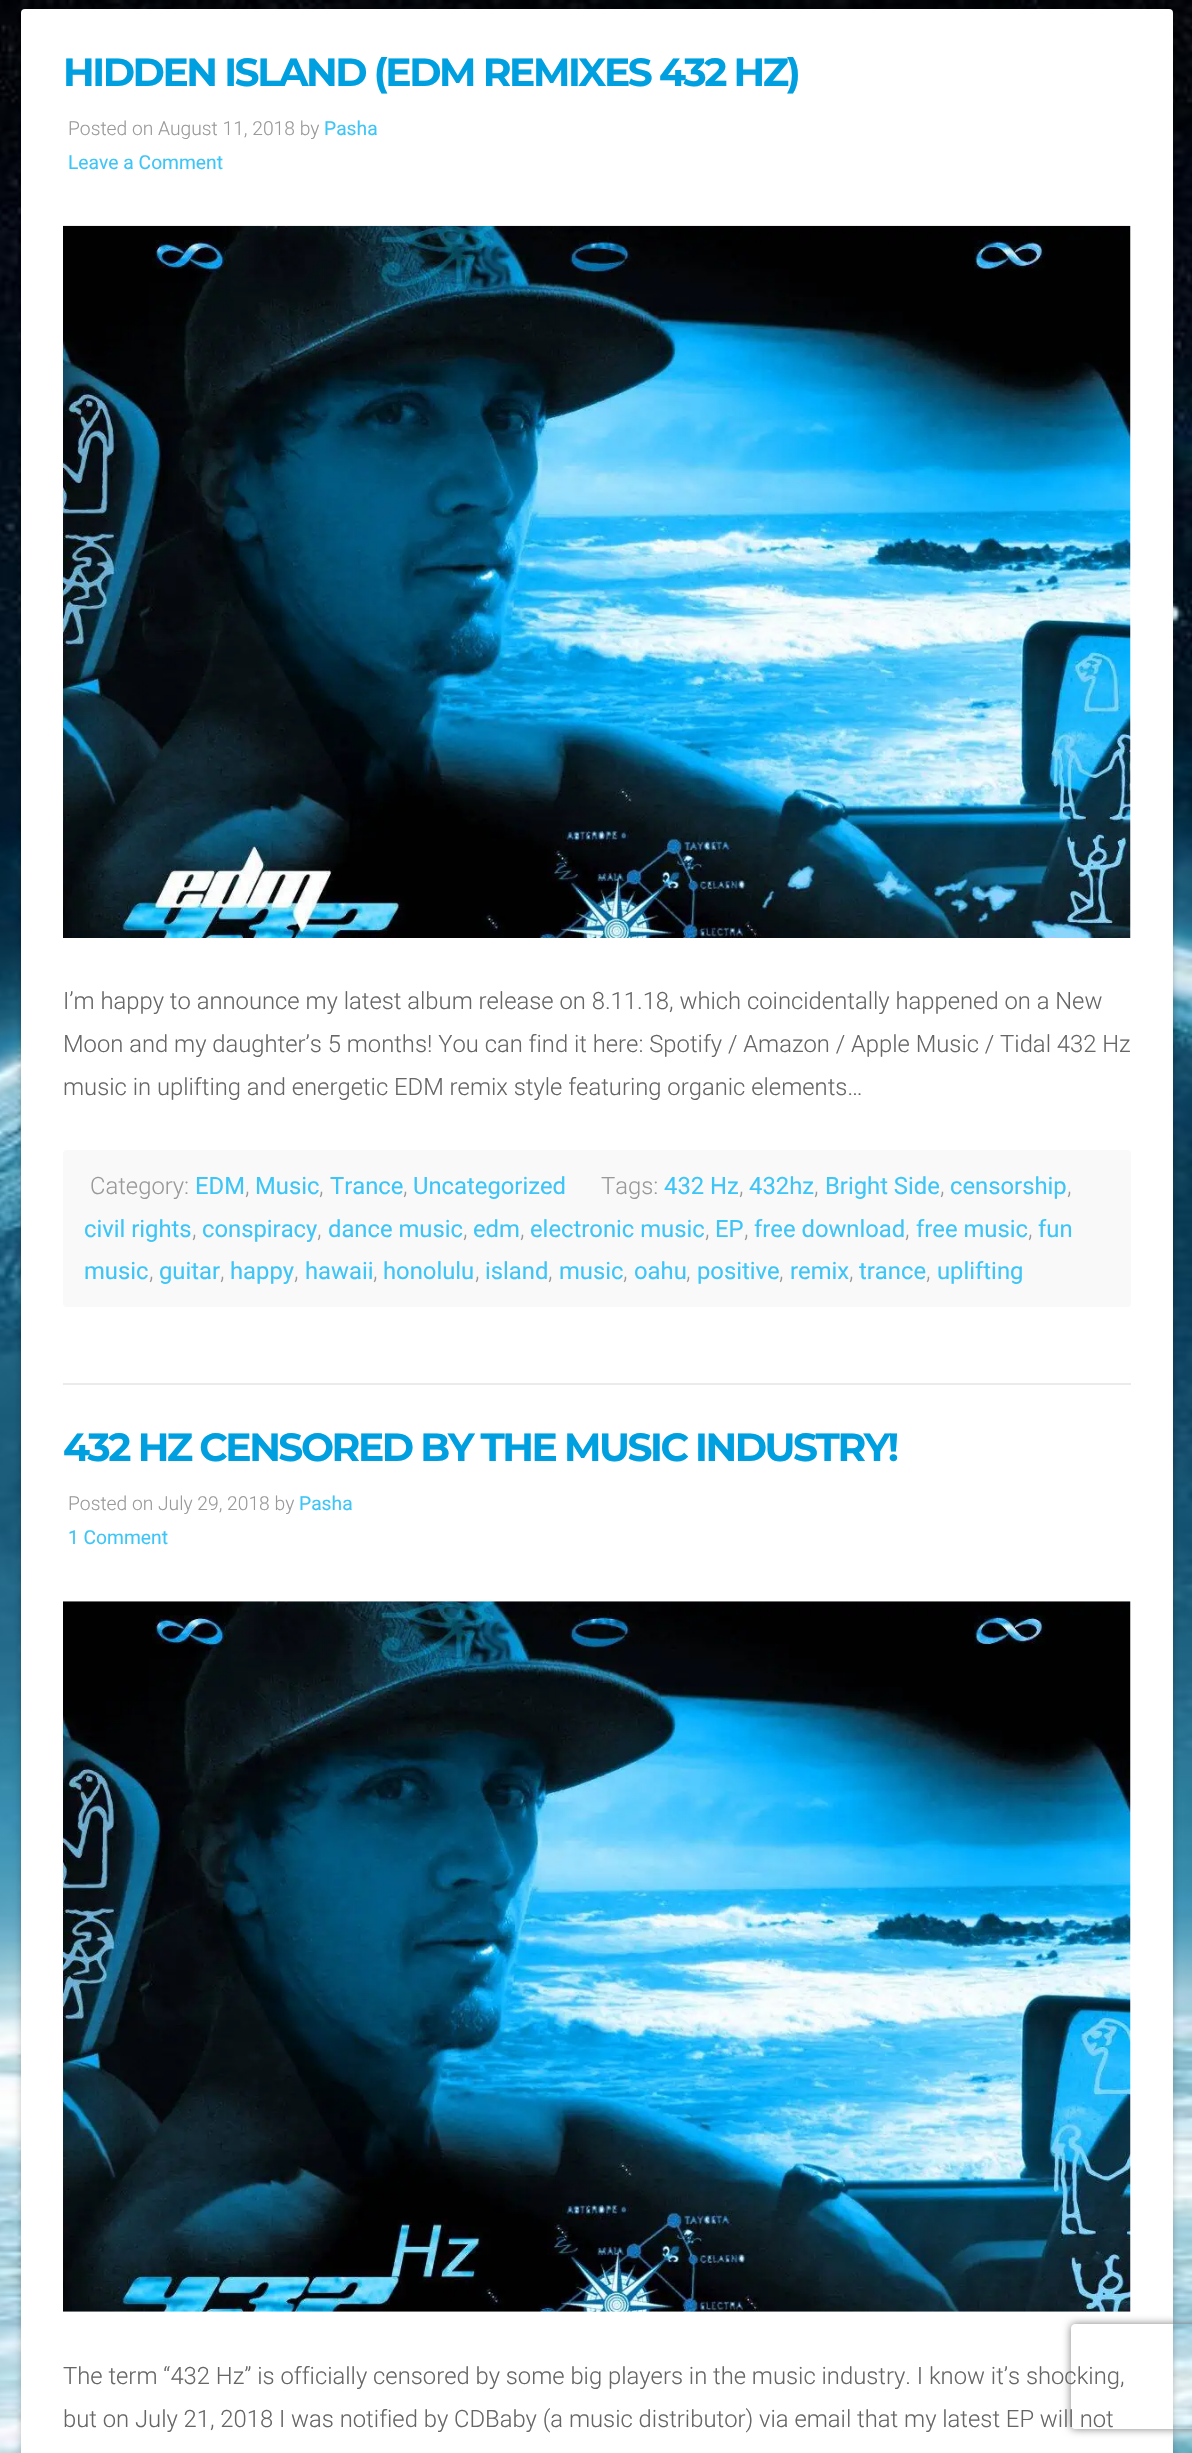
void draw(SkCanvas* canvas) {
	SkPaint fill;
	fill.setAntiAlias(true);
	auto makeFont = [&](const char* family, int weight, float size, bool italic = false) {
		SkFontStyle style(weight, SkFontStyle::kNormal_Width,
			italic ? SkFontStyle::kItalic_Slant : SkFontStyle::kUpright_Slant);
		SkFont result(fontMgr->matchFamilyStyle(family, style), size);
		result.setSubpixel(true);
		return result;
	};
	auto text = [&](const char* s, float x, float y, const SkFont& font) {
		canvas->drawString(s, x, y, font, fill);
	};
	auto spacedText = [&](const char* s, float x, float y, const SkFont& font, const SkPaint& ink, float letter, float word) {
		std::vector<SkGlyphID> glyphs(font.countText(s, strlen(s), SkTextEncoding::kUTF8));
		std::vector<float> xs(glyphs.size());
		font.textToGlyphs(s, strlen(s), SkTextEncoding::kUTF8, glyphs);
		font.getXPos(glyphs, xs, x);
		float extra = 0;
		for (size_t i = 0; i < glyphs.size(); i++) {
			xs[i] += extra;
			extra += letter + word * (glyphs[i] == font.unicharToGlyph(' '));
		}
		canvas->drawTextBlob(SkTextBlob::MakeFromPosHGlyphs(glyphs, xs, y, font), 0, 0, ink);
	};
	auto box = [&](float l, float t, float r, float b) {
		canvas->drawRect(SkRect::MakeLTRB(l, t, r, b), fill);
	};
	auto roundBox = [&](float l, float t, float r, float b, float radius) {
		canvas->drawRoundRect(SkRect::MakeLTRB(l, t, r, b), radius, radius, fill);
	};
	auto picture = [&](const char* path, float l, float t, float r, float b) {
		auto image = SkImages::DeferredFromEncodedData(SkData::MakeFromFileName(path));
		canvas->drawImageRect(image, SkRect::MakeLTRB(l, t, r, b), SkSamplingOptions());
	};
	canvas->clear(0xFFFFFFFF);
	picture("image0.png", 0, 0, 1192, 2453);
	fill.setColor(0x3D000000);
	fill.setMaskFilter(SkMaskFilter::MakeBlur(kNormal_SkBlurStyle, 3.5f));
	canvas->drawRoundRect(SkRect::MakeLTRB(21, 9, 1173, 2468), 4, 4, fill);
	fill.setMaskFilter(nullptr);
	fill.setColor(0xFFFFFFFF);
	roundBox(21, 9, 1173, 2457, 4);
	fill.setColor(0xFFEBEBEB);
	box(63, 1383, 1131, 1385);
	picture("image1.png", 63, 225, 1131, 938);
	fill.setColor(0xFFF9F9F9);
	roundBox(63, 1150, 1131, 1307, 4);
	picture("image2.png", 63, 1601, 1131, 2312);
	canvas->save();
	canvas->clipPath(SkPathBuilder(SkPathFillType::kEvenOdd).moveTo(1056, 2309).lineTo(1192, 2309).lineTo(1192, 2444).lineTo(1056, 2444).close().moveTo(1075, 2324).lineTo(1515, 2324).cubicTo(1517, 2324, 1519, 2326, 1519, 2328).lineTo(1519, 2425).cubicTo(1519, 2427, 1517, 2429, 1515, 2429).lineTo(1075, 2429).cubicTo(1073, 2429, 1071, 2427, 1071, 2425).lineTo(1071, 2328).cubicTo(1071, 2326, 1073, 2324, 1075, 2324).close().detach(), true);
	fill.setColor(0xFF808080);
	fill.setMaskFilter(SkMaskFilter::MakeBlur(kNormal_SkBlurStyle, 4.5f));
	canvas->drawRoundRect(SkRect::MakeLTRB(1071, 2324, 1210, 2429), 4, 4, fill);
	fill.setMaskFilter(nullptr);
	canvas->restore();
	auto font1 = makeFont("Montserrat", 700, 39.2f);
	fill.setColor(0xFF00A0E0);
	spacedText("HIDDEN ISLAND (EDM REMIXES 432 HZ)", 63, 86, font1, fill, -2.45f, 0);
	auto font2 = makeFont("Roboto", 300, 19.25f);
	fill.setColor(0xFF999999);
	text("Posted on August 11, 2018 by", 68, 135, font2);
	auto font3 = makeFont("Roboto", 400, 19.25f);
	fill.setColor(0xFF3DC5F7);
	text("Pasha", 324, 135, font3);
	text("Leave a Comment", 68, 169, font3);
	auto font4 = makeFont("Roboto", 300, 23.8f);
	fill.setColor(0xFF666666);
	text("I’m happy to announce my latest album release on 8.11.18, which coincidentally happened on a New", 63, 1009, font4);
	text("Moon and my daughter’s 5 months! You can find it here: Spotify / Amazon / Apple Music / Tidal 432 Hz", 63, 1052, font4);
	text("music in uplifting and energetic EDM remix style featuring organic elements…", 63, 1095, font4);
	fill.setColor(0xFF999999);
	text("Category:", 90, 1194, font4);
	auto font5 = makeFont("Roboto", 400, 23.8f);
	fill.setColor(0xFF3DC5F7);
	text("EDM", 195, 1194, font5);
	fill.setColor(0xFF999999);
	text(",", 245, 1194, font4);
	fill.setColor(0xFF3DC5F7);
	text("Music", 255, 1194, font5);
	fill.setColor(0xFF999999);
	text(",", 319, 1194, font4);
	fill.setColor(0xFF3DC5F7);
	text("Trance", 330, 1194, font5);
	fill.setColor(0xFF999999);
	text(",", 403, 1194, font4);
	fill.setColor(0xFF3DC5F7);
	text("Uncategorized", 413, 1194, font5);
	fill.setColor(0xFF999999);
	text("Tags:", 601, 1194, font4);
	fill.setColor(0xFF3DC5F7);
	text("432 Hz", 664, 1194, font5);
	fill.setColor(0xFF999999);
	text(",", 739, 1194, font4);
	fill.setColor(0xFF3DC5F7);
	text("432hz", 749, 1194, font5);
	fill.setColor(0xFF999999);
	text(",", 814, 1194, font4);
	fill.setColor(0xFF3DC5F7);
	text("Bright Side", 825, 1194, font5);
	fill.setColor(0xFF999999);
	text(",", 940, 1194, font4);
	fill.setColor(0xFF3DC5F7);
	text("censorship", 950, 1194, font5);
	fill.setColor(0xFF999999);
	text(",", 1067, 1194, font4);
	fill.setColor(0xFF3DC5F7);
	text("civil rights", 84, 1237, font5);
	fill.setColor(0xFF999999);
	text(",", 192, 1237, font4);
	fill.setColor(0xFF3DC5F7);
	text("conspiracy", 202, 1237, font5);
	fill.setColor(0xFF999999);
	text(",", 317, 1237, font4);
	fill.setColor(0xFF3DC5F7);
	text("dance music", 328, 1237, font5);
	fill.setColor(0xFF999999);
	text(",", 463, 1237, font4);
	fill.setColor(0xFF3DC5F7);
	text("edm", 473, 1237, font5);
	fill.setColor(0xFF999999);
	text(",", 520, 1237, font4);
	fill.setColor(0xFF3DC5F7);
	text("electronic music", 530, 1237, font5);
	fill.setColor(0xFF999999);
	text(",", 705, 1237, font4);
	fill.setColor(0xFF3DC5F7);
	text("EP", 715, 1237, font5);
	fill.setColor(0xFF999999);
	text(",", 744, 1237, font4);
	fill.setColor(0xFF3DC5F7);
	text("free download", 754, 1237, font5);
	fill.setColor(0xFF999999);
	text(",", 905, 1237, font4);
	fill.setColor(0xFF3DC5F7);
	text("free music", 916, 1237, font5);
	fill.setColor(0xFF999999);
	text(",", 1028, 1237, font4);
	fill.setColor(0xFF3DC5F7);
	text("fun", 1038, 1237, font5);
	text("music", 84, 1279, font5);
	fill.setColor(0xFF999999);
	text(",", 149, 1279, font4);
	fill.setColor(0xFF3DC5F7);
	text("guitar", 159, 1279, font5);
	fill.setColor(0xFF999999);
	text(",", 220, 1279, font4);
	fill.setColor(0xFF3DC5F7);
	text("happy", 230, 1279, font5);
	fill.setColor(0xFF999999);
	text(",", 294, 1279, font4);
	fill.setColor(0xFF3DC5F7);
	text("hawaii", 305, 1279, font5);
	fill.setColor(0xFF999999);
	text(",", 373, 1279, font4);
	fill.setColor(0xFF3DC5F7);
	text("honolulu", 383, 1279, font5);
	fill.setColor(0xFF999999);
	text(",", 475, 1279, font4);
	fill.setColor(0xFF3DC5F7);
	text("island", 485, 1279, font5);
	fill.setColor(0xFF999999);
	text(",", 548, 1279, font4);
	fill.setColor(0xFF3DC5F7);
	text("music", 559, 1279, font5);
	fill.setColor(0xFF999999);
	text(",", 623, 1279, font4);
	fill.setColor(0xFF3DC5F7);
	text("oahu", 634, 1279, font5);
	fill.setColor(0xFF999999);
	text(",", 686, 1279, font4);
	fill.setColor(0xFF3DC5F7);
	text("positive", 697, 1279, font5);
	fill.setColor(0xFF999999);
	text(",", 779, 1279, font4);
	fill.setColor(0xFF3DC5F7);
	text("remix", 790, 1279, font5);
	fill.setColor(0xFF999999);
	text(",", 849, 1279, font4);
	fill.setColor(0xFF3DC5F7);
	text("trance", 859, 1279, font5);
	fill.setColor(0xFF999999);
	text(",", 926, 1279, font4);
	fill.setColor(0xFF3DC5F7);
	text("uplifting", 937, 1279, font5);
	fill.setColor(0xFF00A0E0);
	spacedText("432 HZ CENSORED BY THE MUSIC INDUSTRY!", 63, 1461, font1, fill, -2.45f, 0);
	fill.setColor(0xFF999999);
	text("Posted on July 29, 2018 by", 68, 1510, font2);
	fill.setColor(0xFF3DC5F7);
	text("Pasha", 299, 1510, font3);
	text("1 Comment", 68, 1544, font3);
	fill.setColor(0xFF666666);
	text("The term “432 Hz” is officially censored by some big players in the music industry. I know it’s shocking,", 63, 2384, font4);
	text("but on July 21, 2018 I was notified by CDBaby (a music distributor) via email that my latest EP will not", 63, 2427, font4);
}
